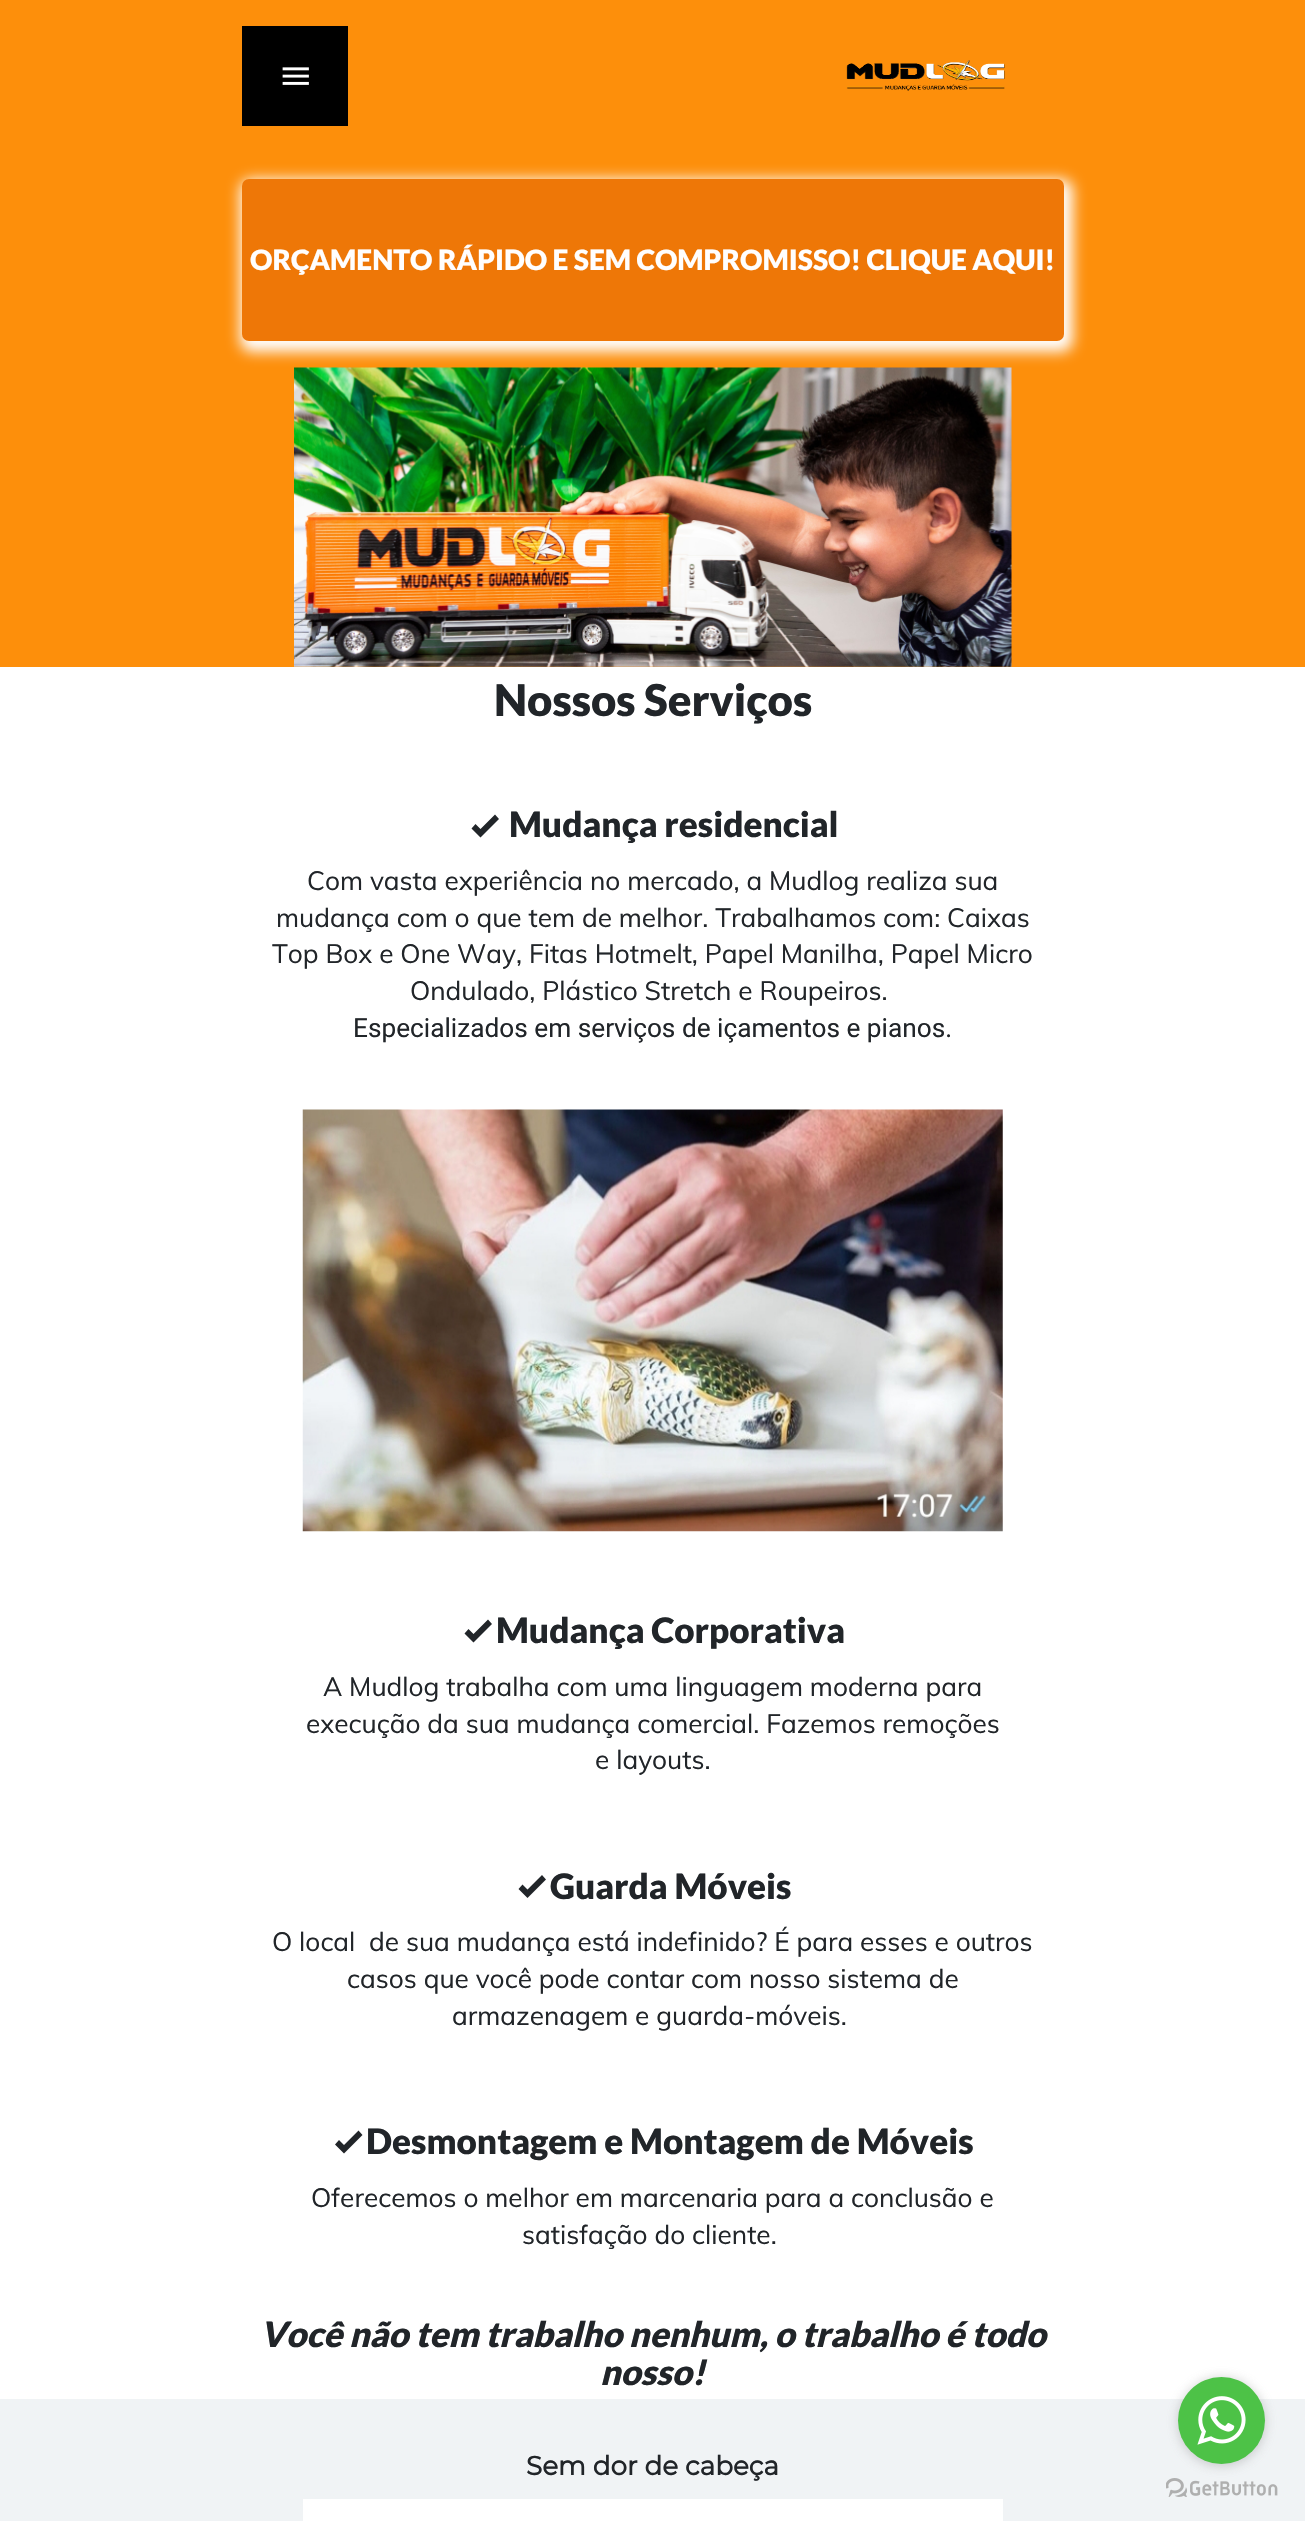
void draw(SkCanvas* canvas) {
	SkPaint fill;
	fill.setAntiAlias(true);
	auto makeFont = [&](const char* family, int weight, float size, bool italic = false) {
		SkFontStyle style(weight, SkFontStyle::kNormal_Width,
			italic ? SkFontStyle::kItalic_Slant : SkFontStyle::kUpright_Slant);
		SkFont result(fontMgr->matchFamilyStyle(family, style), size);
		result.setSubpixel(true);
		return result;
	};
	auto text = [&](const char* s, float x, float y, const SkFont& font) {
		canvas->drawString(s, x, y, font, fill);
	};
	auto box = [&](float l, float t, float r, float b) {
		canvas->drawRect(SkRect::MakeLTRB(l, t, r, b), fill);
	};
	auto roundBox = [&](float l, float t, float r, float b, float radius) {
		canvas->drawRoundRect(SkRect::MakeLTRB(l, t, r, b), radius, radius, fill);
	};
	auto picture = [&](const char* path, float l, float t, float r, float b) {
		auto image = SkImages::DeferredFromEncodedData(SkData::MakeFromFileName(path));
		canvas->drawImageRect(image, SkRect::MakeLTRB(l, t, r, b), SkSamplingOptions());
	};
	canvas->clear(0xFFFFFFFF);
	fill.setColor(0xFFFD8F0B);
	box(0, 0, 1305, 368);
	fill.setColor(0xFF000000);
	box(242, 26, 348, 126);
	picture("image0.png", 282, 67, 309, 85);
	picture("image1.png", 846, 60, 1005, 91);
	fill.setColor(0xFFFFFFFF);
	fill.setMaskFilter(SkMaskFilter::MakeBlur(kNormal_SkBlurStyle, 7));
	canvas->drawRoundRect(SkRect::MakeLTRB(240, 179, 1073, 352), 12, 12, fill);
	fill.setMaskFilter(nullptr);
	fill.setColor(0xFFEE7707);
	roundBox(242, 179, 1064, 341, 7);
	fill.setColor(0xFFFD8F0B);
	box(0, 368, 1305, 667);
	picture("image2.png", 294, 367, 1012, 667);
	fill.setColor(0xFF212529);
	canvas->drawPath(SkPathBuilder().moveTo(480.5f, 837.5f).lineTo(471.5f, 828.5f).lineTo(475.5f, 824).lineTo(480.5f, 829).lineTo(495, 814.5f).lineTo(499, 819).close().detach(), fill);
	picture("image3.png", 302, 1109, 1003, 1532);
	canvas->drawPath(SkPathBuilder().moveTo(473.5f, 1642.5f).lineTo(464.5f, 1633.5f).lineTo(468.5f, 1629).lineTo(473.5f, 1634).lineTo(488, 1619.5f).lineTo(492, 1624).close().detach(), fill);
	canvas->drawPath(SkPathBuilder().moveTo(527.5f, 1898).lineTo(518.5f, 1889).lineTo(522.5f, 1884.5f).lineTo(527.5f, 1889.5f).lineTo(542, 1875).lineTo(546, 1879.5f).close().detach(), fill);
	canvas->drawPath(SkPathBuilder().moveTo(344, 2153.5f).lineTo(335, 2144.5f).lineTo(339, 2140).lineTo(344, 2145).lineTo(358.5f, 2130.5f).lineTo(362.5f, 2135).close().detach(), fill);
	fill.setColor(0xFFF0F3F5);
	box(0, 2399, 1305, 2521);
	fill.setColor(0xFFFFFFFF);
	box(303, 2499, 1003, 2521);
	picture("image5.png", 1166, 2478, 1278, 2497);
	fill.setColor(0x66888888);
	fill.setMaskFilter(SkMaskFilter::MakeBlur(kNormal_SkBlurStyle, 6));
	canvas->drawRoundRect(SkRect::MakeLTRB(1178, 2378, 1265, 2466), 43.5f, 43.5f, fill);
	fill.setMaskFilter(nullptr);
	fill.setColor(0xFF4DC247);
	canvas->drawCircle(1221.5f, 2420.5f, 43.5f, fill);
	picture("image4.png", 1197, 2396, 1246, 2445);
	auto font1 = makeFont("Lato", 900, 28);
	fill.setColor(0xFFFFFEFE);
	text("ORÇAMENTO RÁPIDO E SEM COMPROMISSO! CLIQUE AQUI!", 250, 270, font1);
	auto font2 = makeFont("Lato", 900, 43.75f);
	fill.setColor(0xFF212529);
	text("Nossos Serviços", 494, 716, font2);
	auto font3 = makeFont("Lato", 900, 35);
	text("Mudança residencial", 509, 837, font3);
	auto font4 = makeFont("Muli", 400, 26.25f);
	text("Com vasta experiência no mercado, a Mudlog realiza sua", 307, 890, font4);
	text("mudança com o que tem de melhor. Trabalhamos com: Caixas", 276, 927, font4);
	text("Top Box e One Way, Fitas Hotmelt, Papel Manilha, Papel Micro", 272, 963, font4);
	text("Ondulado, Plástico Stretch e Roupeiros.", 410, 1000, font4);
	auto font5 = makeFont("Roboto", 400, 26.25f);
	text("Especializados em serviços de içamentos e pianos.", 353, 1037, font5);
	text("Mudança Corporativa", 496, 1643, font3);
	text("A Mudlog trabalha com uma linguagem moderna para", 323, 1696, font4);
	text("execução da sua mudança comercial. Fazemos remoções", 306, 1733, font4);
	text("e layouts.", 595, 1769, font4);
	text("Guarda Móveis", 550, 1899, font3);
	text("O local  de sua mudança está indefinido? É para esses e outros", 272, 1951, font4);
	text("casos que você pode contar com nosso sistema de", 347, 1988, font4);
	text("armazenagem e guarda-móveis.", 452, 2025, font4);
	text("Desmontagem e Montagem de Móveis", 366, 2154, font3);
	text("Oferecemos o melhor em marcenaria para a conclusão e", 311, 2207, font4);
	text("satisfação do cliente.", 522, 2244, font4);
	auto font6 = makeFont("Lato", 900, 35, true);
	text("Você não tem trabalho nenhum, o trabalho é todo", 260, 2347, font6);
	text("nosso!", 600, 2385, font6);
	auto font7 = makeFont("Montserrat", 700, 26.25f);
	text("Sem dor de cabeça", 526, 2475, font7);
}
